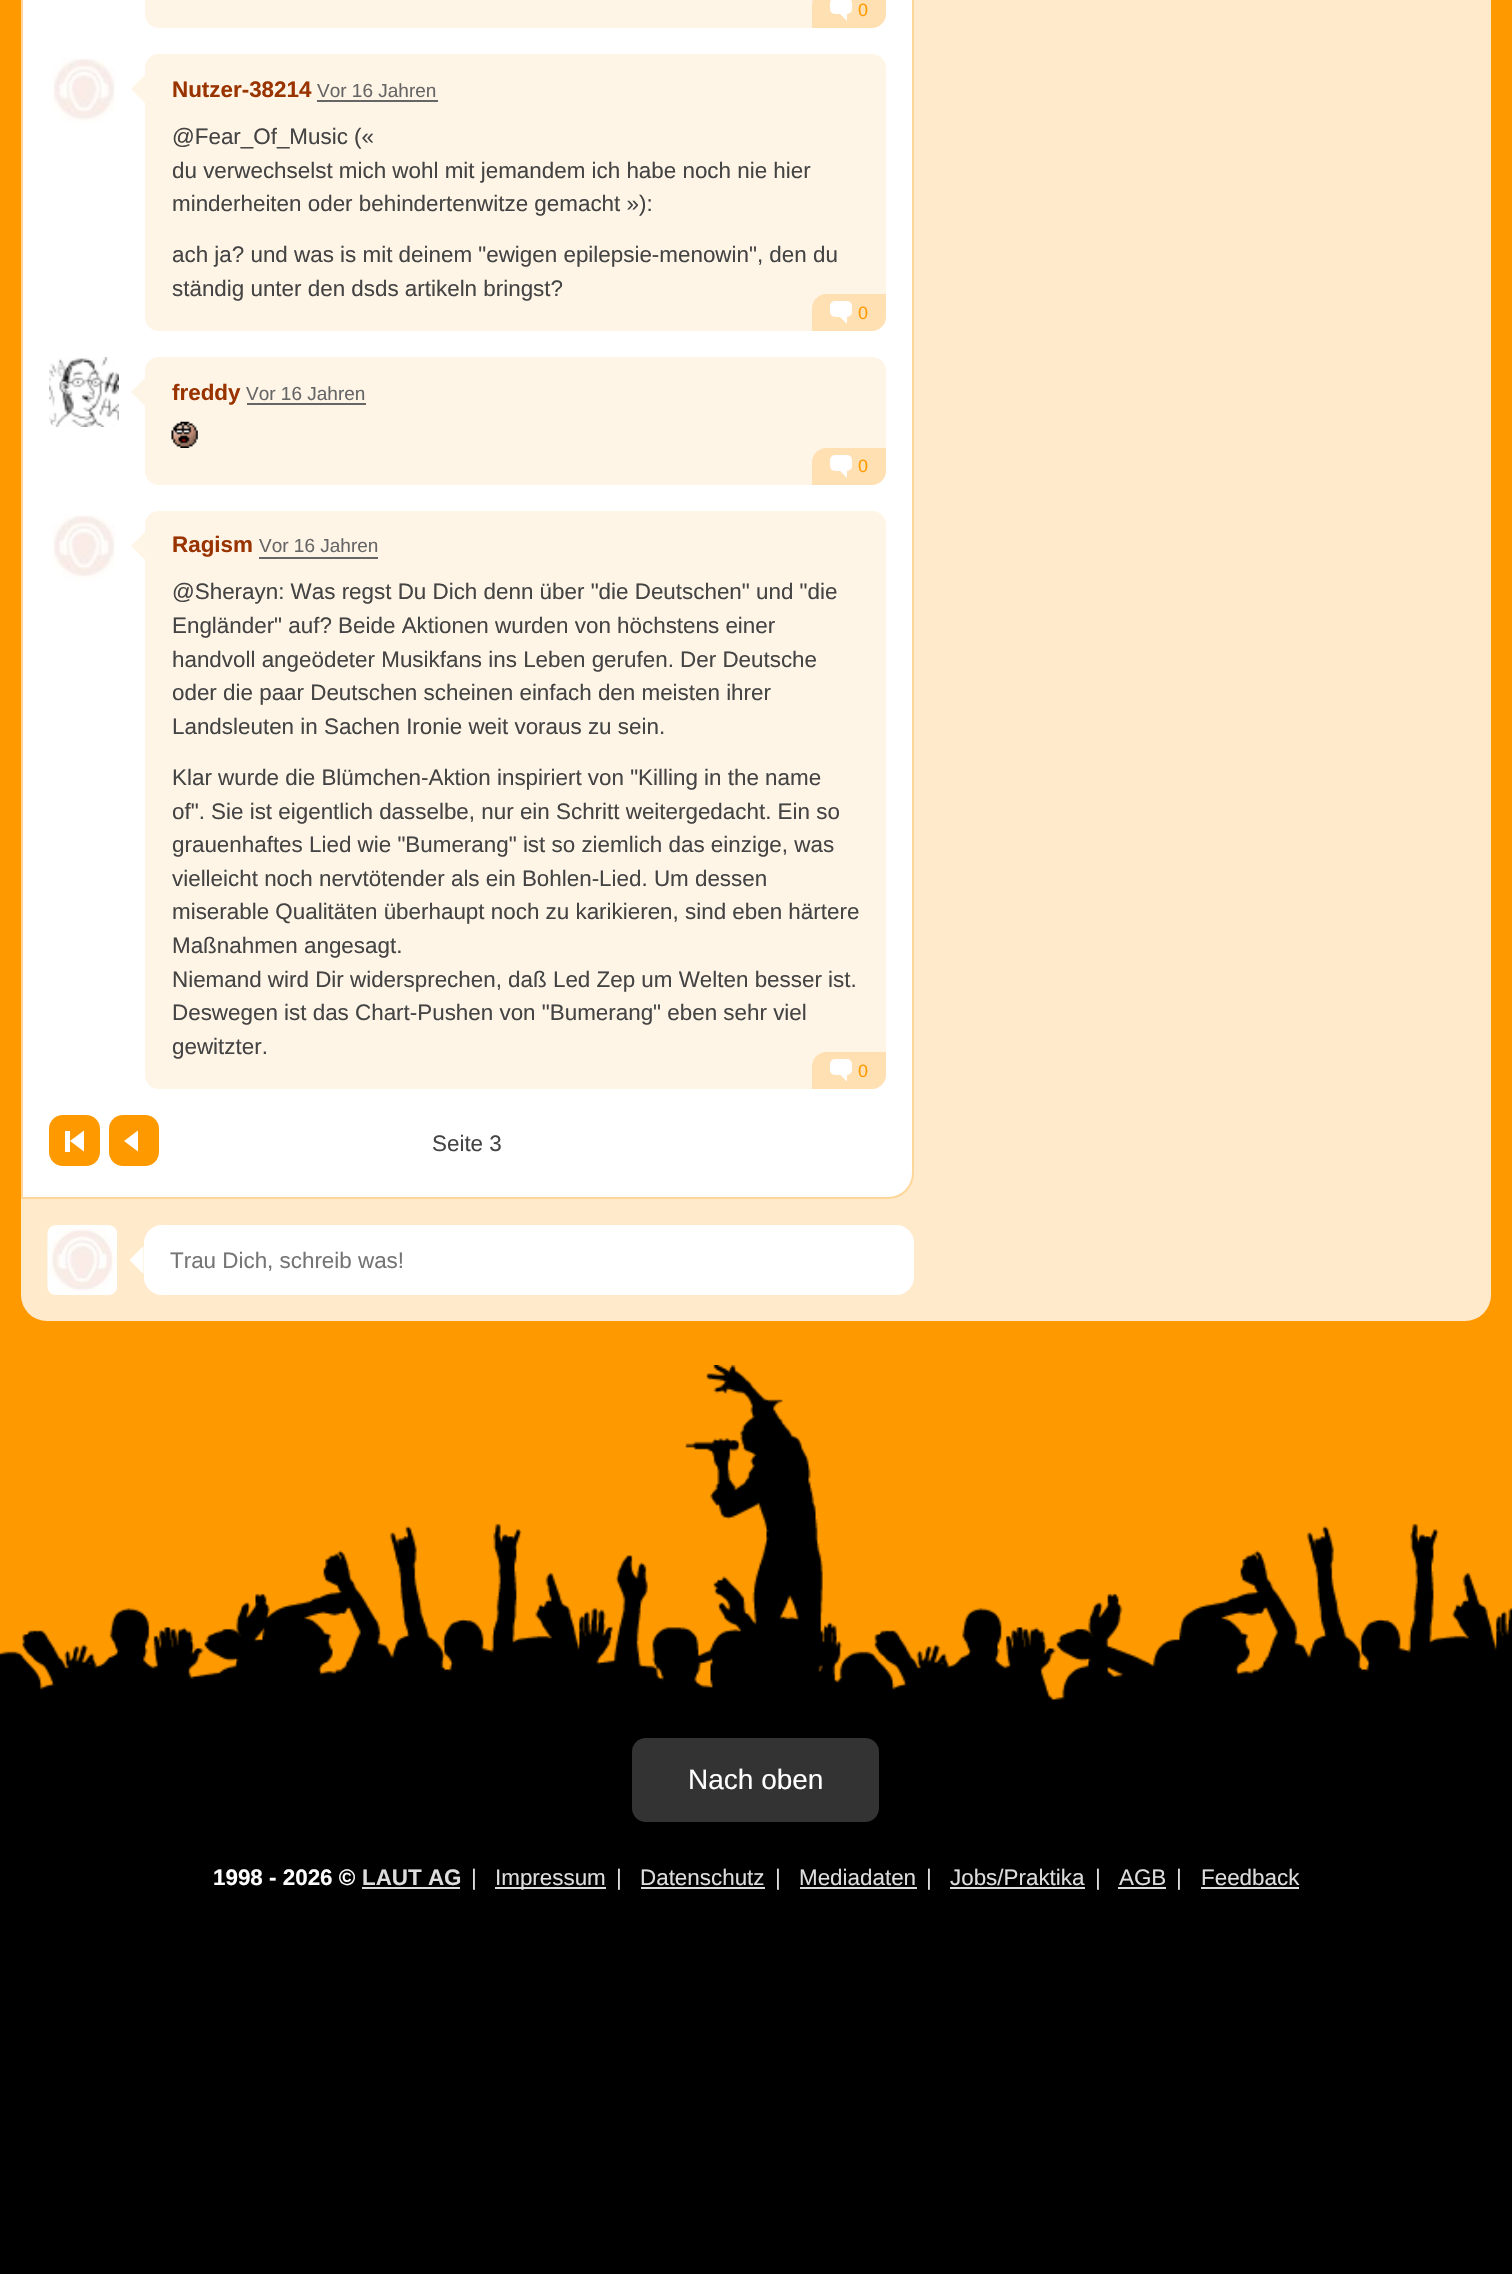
void draw(SkCanvas* canvas) {
	SkPaint fill;
	fill.setAntiAlias(true);
	auto makeFont = [&](const char* family, int weight, float size, bool italic = false) {
		SkFontStyle style(weight, SkFontStyle::kNormal_Width,
			italic ? SkFontStyle::kItalic_Slant : SkFontStyle::kUpright_Slant);
		SkFont result(fontMgr->matchFamilyStyle(family, style), size);
		result.setSubpixel(true);
		return result;
	};
	auto text = [&](const char* s, float x, float y, const SkFont& font) {
		canvas->drawString(s, x, y, font, fill);
	};
	auto box = [&](float l, float t, float r, float b) {
		canvas->drawRect(SkRect::MakeLTRB(l, t, r, b), fill);
	};
	auto roundBox = [&](float l, float t, float r, float b, float radius) {
		canvas->drawRoundRect(SkRect::MakeLTRB(l, t, r, b), radius, radius, fill);
	};
	auto picture = [&](const char* path, float l, float t, float r, float b) {
		auto image = SkImages::DeferredFromEncodedData(SkData::MakeFromFileName(path));
		canvas->drawImageRect(image, SkRect::MakeLTRB(l, t, r, b), SkSamplingOptions());
	};
	canvas->clear(0xFFFF9900);
	fill.setColor(0xFFFFEBCC);
	roundBox(21, -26, 1491, 1321, 26);
	fill.setColor(0xFFFFFFFF);
	canvas->drawPath(SkPathBuilder().moveTo(22, -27).lineTo(888, -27).cubicTo(902, -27, 913, -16, 913, -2).lineTo(913, 1173).cubicTo(913, 1187, 902, 1198, 888, 1198).lineTo(22, 1198).close().detach(), fill);
	fill.setStyle(SkPaint::kStroke_Style);
	fill.setStrokeWidth(2);
	fill.setColor(0xFFFFD699);
	canvas->drawPath(SkPathBuilder().moveTo(22, -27).lineTo(888, -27).cubicTo(902, -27, 913, -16, 913, -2).lineTo(913, 1173).cubicTo(913, 1187, 902, 1198, 888, 1198).lineTo(22, 1198).close().detach(), fill);
	fill.setStyle(SkPaint::kFill_Style);
	fill.setColor(0xFFFFF5E6);
	roundBox(145, -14, 886, 28, 14);
	fill.setColor(0xFFFFE0B3);
	canvas->drawPath(SkPathBuilder().moveTo(826, -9).lineTo(886, -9).lineTo(886, 14).cubicTo(886, 21.5f, 879.5f, 28, 872, 28).lineTo(812, 28).lineTo(812, 5).cubicTo(812, -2.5f, 818.5f, -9, 826, -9).close().detach(), fill);
	fill.setColor(0xFFFFFFFF);
	roundBox(830, -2, 852, 14, 5);
	canvas->drawPath(SkPathBuilder().moveTo(847, 14).lineTo(847, 21).lineTo(840, 14).close().detach(), fill);
	picture("image0.png", 52, 58, 115, 124);
	fill.setColor(0xFFFFF5E6);
	canvas->drawPath(SkPathBuilder().moveTo(145, 75).lineTo(145, 103).lineTo(131, 89).close().detach(), fill);
	roundBox(145, 54, 886, 331, 14);
	fill.setColor(0xFF666666);
	box(317, 100, 438, 102);
	fill.setColor(0xFFFFE0B3);
	canvas->drawPath(SkPathBuilder().moveTo(826, 294).lineTo(886, 294).lineTo(886, 317).cubicTo(886, 324.5f, 879.5f, 331, 872, 331).lineTo(812, 331).lineTo(812, 308).cubicTo(812, 300.5f, 818.5f, 294, 826, 294).close().detach(), fill);
	fill.setColor(0xFFFFFFFF);
	roundBox(830, 301, 852, 317, 5);
	canvas->drawPath(SkPathBuilder().moveTo(847, 317).lineTo(847, 324).lineTo(840, 317).close().detach(), fill);
	picture("image1.png", 49, 357, 119, 427);
	fill.setColor(0xFFFFF5E6);
	canvas->drawPath(SkPathBuilder().moveTo(145, 378).lineTo(145, 406).lineTo(131, 392).close().detach(), fill);
	roundBox(145, 357, 886, 485, 14);
	fill.setColor(0xFF666666);
	box(247, 403, 366, 405);
	picture("image2.png", 171, 421, 198, 448);
	fill.setColor(0xFFFFE0B3);
	canvas->drawPath(SkPathBuilder().moveTo(826, 448).lineTo(886, 448).lineTo(886, 471).cubicTo(886, 478.5f, 879.5f, 485, 872, 485).lineTo(812, 485).lineTo(812, 462).cubicTo(812, 454.5f, 818.5f, 448, 826, 448).close().detach(), fill);
	fill.setColor(0xFFFFFFFF);
	roundBox(830, 455, 852, 471, 5);
	canvas->drawPath(SkPathBuilder().moveTo(847, 471).lineTo(847, 478).lineTo(840, 471).close().detach(), fill);
	picture("image3.png", 52, 515, 115, 581);
	fill.setColor(0xFFFFF5E6);
	canvas->drawPath(SkPathBuilder().moveTo(145, 532).lineTo(145, 560).lineTo(131, 546).close().detach(), fill);
	roundBox(145, 511, 886, 1089, 14);
	fill.setColor(0xFF666666);
	box(259, 557, 378, 559);
	fill.setColor(0xFFFFE0B3);
	canvas->drawPath(SkPathBuilder().moveTo(826, 1052).lineTo(886, 1052).lineTo(886, 1075).cubicTo(886, 1082.5f, 879.5f, 1089, 872, 1089).lineTo(812, 1089).lineTo(812, 1066).cubicTo(812, 1058.5f, 818.5f, 1052, 826, 1052).close().detach(), fill);
	fill.setColor(0xFFFFFFFF);
	roundBox(830, 1059, 852, 1075, 5);
	canvas->drawPath(SkPathBuilder().moveTo(847, 1074.5f).lineTo(847, 1081.5f).lineTo(840, 1074.5f).close().detach(), fill);
	fill.setColor(0xFFFF9900);
	roundBox(49, 1115, 100, 1166, 14);
	fill.setColor(0xFFFFFFFF);
	box(65, 1131, 70, 1152);
	canvas->drawPath(SkPathBuilder().moveTo(84, 1130.5f).lineTo(84, 1151.5f).lineTo(70, 1141).close().detach(), fill);
	fill.setColor(0xFFFF9900);
	roundBox(109, 1115, 159, 1166, 14);
	fill.setColor(0xFFFFFFFF);
	canvas->drawPath(SkPathBuilder().moveTo(138, 1130.5f).lineTo(138, 1151.5f).lineTo(124, 1141).close().detach(), fill);
	picture("image4.png", 47, 1225, 117, 1295);
	canvas->drawPath(SkPathBuilder().moveTo(143.5f, 1246).lineTo(143.5f, 1274).lineTo(129.5f, 1260).close().detach(), fill);
	roundBox(144, 1225, 914, 1295, 18);
	picture("image5.png", 0, 1365, 1512, 2274);
	fill.setColor(0xFF333333);
	roundBox(632, 1738, 879, 1822, 14);
	fill.setColor(0xFFDDDDDD);
	box(362, 1887, 460, 1889);
	box(495, 1887, 606, 1889);
	box(641, 1887, 765, 1889);
	box(800, 1887, 917, 1889);
	box(950, 1887, 1085, 1889);
	box(1118, 1887, 1166, 1889);
	box(1201, 1887, 1299, 1889);
	auto font1 = makeFont("Liberation Sans", 400, 18);
	fill.setColor(0xFFFF9900);
	text("0", 858, 16, font1);
	auto font2 = makeFont("Liberation Sans", 700, 22.4f);
	fill.setColor(0xFF993300);
	text("Nutzer-38214", 172, 97, font2);
	auto font3 = makeFont("Liberation Sans", 400, 19);
	fill.setColor(0xFF666666);
	text("Vor 16 Jahren", 317, 97, font3);
	auto font4 = makeFont("Liberation Sans", 400, 22.4f);
	fill.setColor(0xFF444444);
	text("@Fear_Of_Music («", 172, 144, font4);
	text("du verwechselst mich wohl mit jemandem ich habe noch nie hier", 172, 178, font4);
	text("minderheiten oder behindertenwitze gemacht »):", 172, 211, font4);
	text("ach ja? und was is mit deinem \"ewigen epilepsie-menowin\", den du", 172, 262, font4);
	text("ständig unter den dsds artikeln bringst?", 172, 296, font4);
	fill.setColor(0xFFFF9900);
	text("0", 858, 319, font1);
	fill.setColor(0xFF993300);
	text("freddy", 172, 400, font2);
	fill.setColor(0xFF666666);
	text("Vor 16 Jahren", 246, 400, font3);
	fill.setColor(0xFFFF9900);
	text("0", 858, 472, font1);
	fill.setColor(0xFF993300);
	text("Ragism", 172, 552, font2);
	fill.setColor(0xFF666666);
	text("Vor 16 Jahren", 259, 552, font3);
	fill.setColor(0xFF444444);
	text("@Sherayn: Was regst Du Dich denn über \"die Deutschen\" und \"die", 172, 599, font4);
	text("Engländer\" auf? Beide Aktionen wurden von höchstens einer", 172, 633, font4);
	text("handvoll angeödeter Musikfans ins Leben gerufen. Der Deutsche", 172, 667, font4);
	text("oder die paar Deutschen scheinen einfach den meisten ihrer", 172, 700, font4);
	text("Landsleuten in Sachen Ironie weit voraus zu sein.", 172, 734, font4);
	text("Klar wurde die Blümchen-Aktion inspiriert von \"Killing in the name", 172, 785, font4);
	text("of\". Sie ist eigentlich dasselbe, nur ein Schritt weitergedacht. Ein so", 172, 819, font4);
	text("grauenhaftes Lied wie \"Bumerang\" ist so ziemlich das einzige, was", 172, 852, font4);
	text("vielleicht noch nervtötender als ein Bohlen-Lied. Um dessen", 172, 886, font4);
	text("miserable Qualitäten überhaupt noch zu karikieren, sind eben härtere", 172, 919, font4);
	text("Maßnahmen angesagt.", 172, 953, font4);
	text("Niemand wird Dir widersprechen, daß Led Zep um Welten besser ist.", 172, 987, font4);
	text("Deswegen ist das Chart-Pushen von \"Bumerang\" eben sehr viel", 172, 1020, font4);
	text("gewitzter.", 172, 1054, font4);
	fill.setColor(0xFFFF9900);
	text("0", 858, 1077, font1);
	fill.setColor(0xFF444444);
	text("Seite 3", 432, 1151, font4);
	fill.setColor(0xFF757575);
	text("Trau Dich, schreib was!", 170, 1268, font4);
	auto font5 = makeFont("Liberation Sans", 400, 28);
	fill.setColor(0xFFFFFFFF);
	text("Nach oben", 688, 1789, font5);
	text("1998 - 2026 ©", 213, 1885, font2);
	fill.setColor(0xFFDDDDDD);
	text("LAUT AG", 362, 1885, font2);
	text("|", 471, 1885, font4);
	text("Impressum", 495, 1885, font4);
	text("|", 616, 1885, font4);
	text("Datenschutz", 640, 1885, font4);
	text("|", 775, 1885, font4);
	text("Mediadaten", 799, 1885, font4);
	text("|", 926, 1885, font4);
	text("Jobs/Praktika", 950, 1885, font4);
	text("|", 1095, 1885, font4);
	text("AGB", 1119, 1885, font4);
	text("|", 1176, 1885, font4);
	text("Feedback", 1201, 1885, font4);
}
